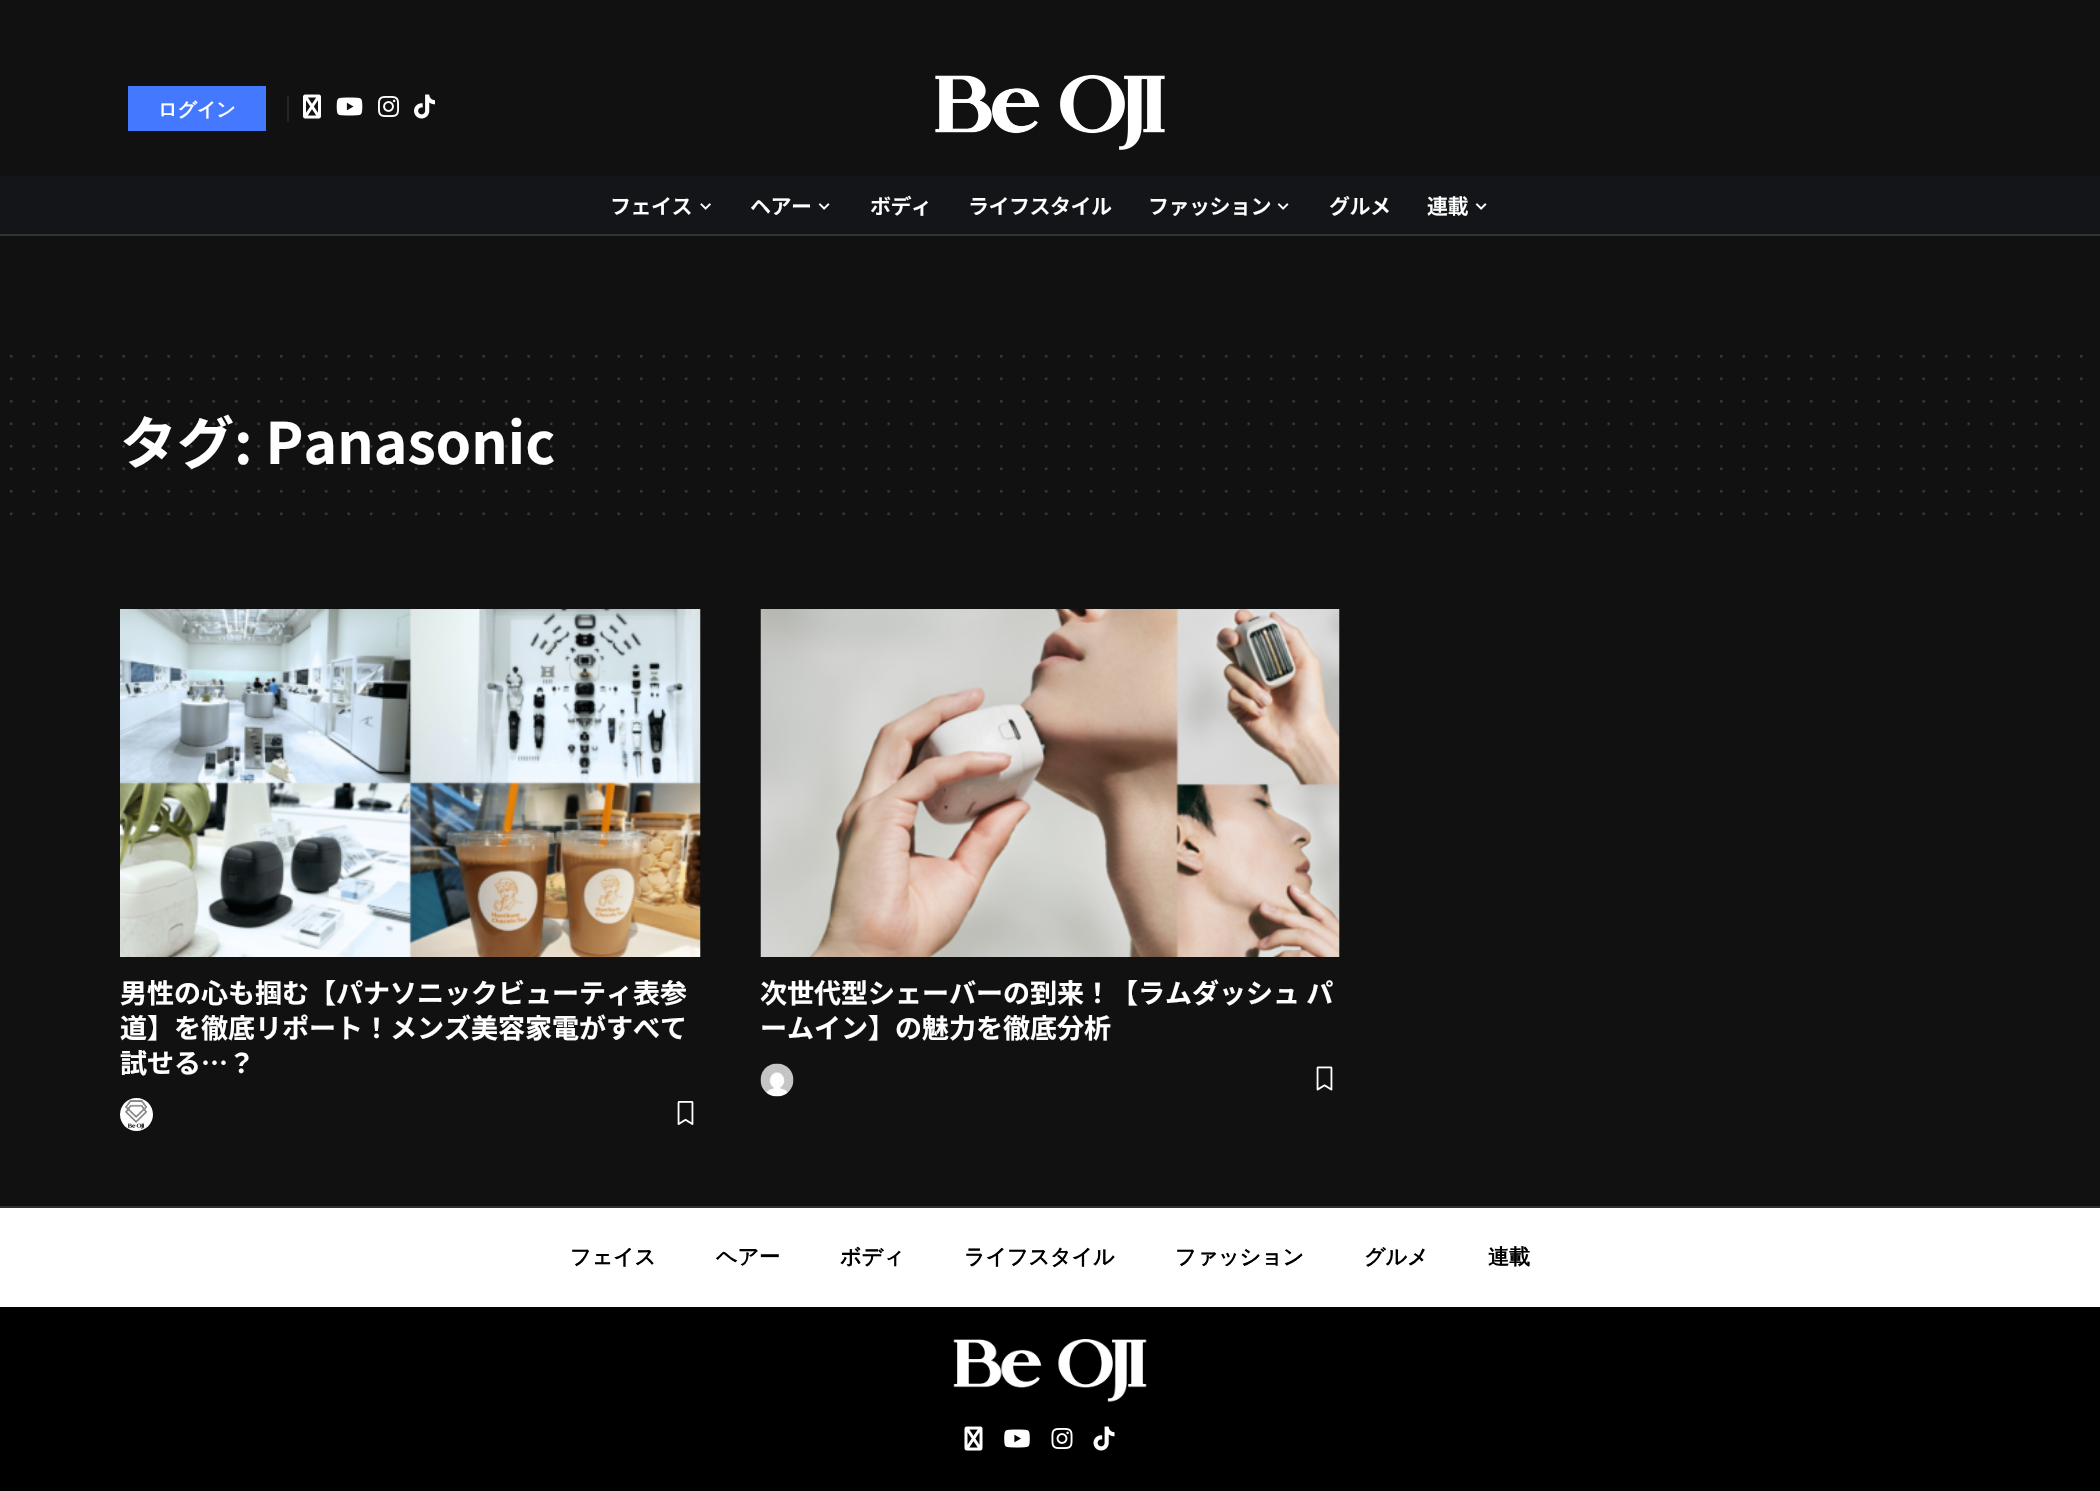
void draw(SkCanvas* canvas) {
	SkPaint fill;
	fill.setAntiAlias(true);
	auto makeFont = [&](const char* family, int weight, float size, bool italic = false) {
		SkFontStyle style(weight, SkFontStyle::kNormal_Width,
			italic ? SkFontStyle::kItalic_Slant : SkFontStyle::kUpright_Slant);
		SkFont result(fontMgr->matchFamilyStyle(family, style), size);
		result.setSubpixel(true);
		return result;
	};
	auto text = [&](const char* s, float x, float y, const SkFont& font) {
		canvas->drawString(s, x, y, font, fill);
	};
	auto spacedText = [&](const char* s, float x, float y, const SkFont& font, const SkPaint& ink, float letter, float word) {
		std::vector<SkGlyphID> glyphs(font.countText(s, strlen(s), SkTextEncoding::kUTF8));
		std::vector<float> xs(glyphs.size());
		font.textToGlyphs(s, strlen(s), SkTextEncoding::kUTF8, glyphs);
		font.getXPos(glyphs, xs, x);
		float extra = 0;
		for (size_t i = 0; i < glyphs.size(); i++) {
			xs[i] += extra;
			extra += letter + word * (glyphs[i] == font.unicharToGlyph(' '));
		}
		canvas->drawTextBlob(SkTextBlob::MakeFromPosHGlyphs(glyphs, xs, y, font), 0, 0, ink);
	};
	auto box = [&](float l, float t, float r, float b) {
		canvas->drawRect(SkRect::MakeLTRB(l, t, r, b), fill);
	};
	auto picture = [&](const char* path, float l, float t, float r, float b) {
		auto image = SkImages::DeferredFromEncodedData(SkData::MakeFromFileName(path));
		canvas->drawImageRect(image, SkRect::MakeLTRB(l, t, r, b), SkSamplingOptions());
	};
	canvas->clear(0xFF111111);
	fill.setColor(0xFF4479FF);
	box(128, 86, 266, 131);
	fill.setColor(0xFF252525);
	box(287, 96, 289, 122);
	picture("image0.png", 303, 94, 321, 119);
	picture("image1.png", 336, 97, 363, 116);
	picture("image2.png", 378, 96, 399, 117);
	picture("image3.png", 414, 94, 435, 119);
	picture("image4.png", 935, 74, 1165, 150);
	fill.setColor(0xFF131518);
	box(0, 176, 2100, 234);
	picture("image5.png", 700, 203, 711, 210);
	picture("image6.png", 818, 203, 830, 210);
	picture("image6.png", 1277, 203, 1289, 210);
	picture("image6.png", 1475, 203, 1487, 210);
	fill.setColor(0xFF303234);
	box(0, 234, 2100, 236);
	fill.setStyle(SkPaint::kStroke_Style);
	fill.setStrokeWidth(3);
	fill.setStrokeCap(SkPaint::kRound_Cap);
	fill.setColor(0xFF353535);
	fill.setPathEffect(SkDashPathEffect::Make({{0, 22.5f}}, 0));
	canvas->drawPath(SkPathBuilder().moveTo(11.2f, 356.2f).lineTo(2081.6f, 356.2f).detach(), fill);
	fill.setPathEffect(nullptr);
	fill.setPathEffect(SkDashPathEffect::Make({{0, 22.5f}}, 0));
	canvas->drawPath(SkPathBuilder().moveTo(11.2f, 378.8f).lineTo(2081.6f, 378.8f).detach(), fill);
	fill.setPathEffect(nullptr);
	fill.setPathEffect(SkDashPathEffect::Make({{0, 22.5f}}, 0));
	canvas->drawPath(SkPathBuilder().moveTo(11.2f, 401.2f).lineTo(2081.6f, 401.2f).detach(), fill);
	fill.setPathEffect(nullptr);
	fill.setPathEffect(SkDashPathEffect::Make({{0, 22.5f}}, 0));
	canvas->drawPath(SkPathBuilder().moveTo(11.2f, 491.2f).lineTo(2081.6f, 491.2f).detach(), fill);
	fill.setPathEffect(nullptr);
	fill.setPathEffect(SkDashPathEffect::Make({{0, 22.5f}}, 0));
	canvas->drawPath(SkPathBuilder().moveTo(11.2f, 513.8f).lineTo(2081.6f, 513.8f).detach(), fill);
	fill.setPathEffect(nullptr);
	picture("image7.png", 120, 609, 701, 957);
	picture("image8.png", 120, 1098, 153, 1131);
	picture("image9.png", 677, 1101, 694, 1125);
	picture("image10.png", 760, 609, 1340, 957);
	picture("image11.png", 760, 1063, 794, 1097);
	picture("image12.png", 1316, 1066, 1333, 1091);
	fill.setStyle(SkPaint::kFill_Style);
	fill.setColor(0xFF2F2F2F);
	box(0, 1206, 2100, 1208);
	fill.setColor(0xFFFFFFFF);
	box(0, 1208, 2100, 1307);
	fill.setColor(0xFF000000);
	box(0, 1307, 2100, 1491);
	picture("image13.png", 953, 1339, 1147, 1402);
	picture("image14.png", 964, 1426, 983, 1451);
	picture("image15.png", 1004, 1429, 1030, 1448);
	picture("image16.png", 1051, 1428, 1073, 1449);
	picture("image17.png", 1093, 1426, 1115, 1451);
	auto font1 = makeFont("WenQuanYi Zen Hei", 700, 19);
	fill.setColor(0xFFFFFFFF);
	text("ログイン", 158, 116, font1);
	auto font2 = makeFont("Noto Sans JP", 600, 21);
	spacedText("フェイス", 610, 214, font2, fill, -0.5f, 0);
	spacedText("ヘアー", 750, 214, font2, fill, -0.5f, 0);
	spacedText("ボディ", 870, 214, font2, fill, -0.5f, 0);
	spacedText("ライフスタイル", 968, 214, font2, fill, -0.5f, 0);
	spacedText("ファッション", 1148, 214, font2, fill, -0.5f, 0);
	spacedText("グルメ", 1329, 214, font2, fill, -0.5f, 0);
	spacedText("連載", 1427, 214, font2, fill, -0.5f, 0);
	auto font3 = makeFont("Noto Sans JP", 700, 57);
	text("タグ: Panasonic", 120, 464, font3);
	fill.setStyle(SkPaint::kStroke_Style);
	fill.setColor(0x26FFFFFF);
	fill.setPathEffect(SkDashPathEffect::Make({{0, 22.5f}}, 0));
	canvas->drawPath(SkPathBuilder().moveTo(11.2f, 468.8f).lineTo(2081.6f, 468.8f).detach(), fill);
	fill.setPathEffect(nullptr);
	fill.setPathEffect(SkDashPathEffect::Make({{0, 22.5f}}, 0));
	canvas->drawPath(SkPathBuilder().moveTo(11.2f, 446.2f).lineTo(2081.6f, 446.2f).detach(), fill);
	fill.setPathEffect(nullptr);
	fill.setPathEffect(SkDashPathEffect::Make({{0, 22.5f}}, 0));
	canvas->drawPath(SkPathBuilder().moveTo(11.2f, 423.8f).lineTo(2081.6f, 423.8f).detach(), fill);
	fill.setPathEffect(nullptr);
	auto font4 = makeFont("Noto Sans JP", 700, 27);
	fill.setStyle(SkPaint::kFill_Style);
	fill.setColor(0xFFFFFFFF);
	text("男性の心も掴む【パナソニックビューティ表参", 120, 1003, font4);
	text("道】を徹底リポート！メンズ美容家電がすべて", 120, 1038, font4);
	text("試せる…？", 120, 1073, font4);
	text("次世代型シェーバーの到来！【ラムダッシュ パ", 760, 1003, font4);
	text("ームイン】の魅力を徹底分析", 760, 1038, font4);
	auto font5 = makeFont("WenQuanYi Zen Hei", 700, 21);
	fill.setColor(0xFF000000);
	text("フェイス", 570, 1264, font5);
	text("ヘアー", 716, 1264, font5);
	text("ボディ", 840, 1264, font5);
	text("ライフスタイル", 964, 1264, font5);
	text("ファッション", 1175, 1264, font5);
	text("グルメ", 1364, 1264, font5);
	text("連載", 1488, 1264, font5);
}
